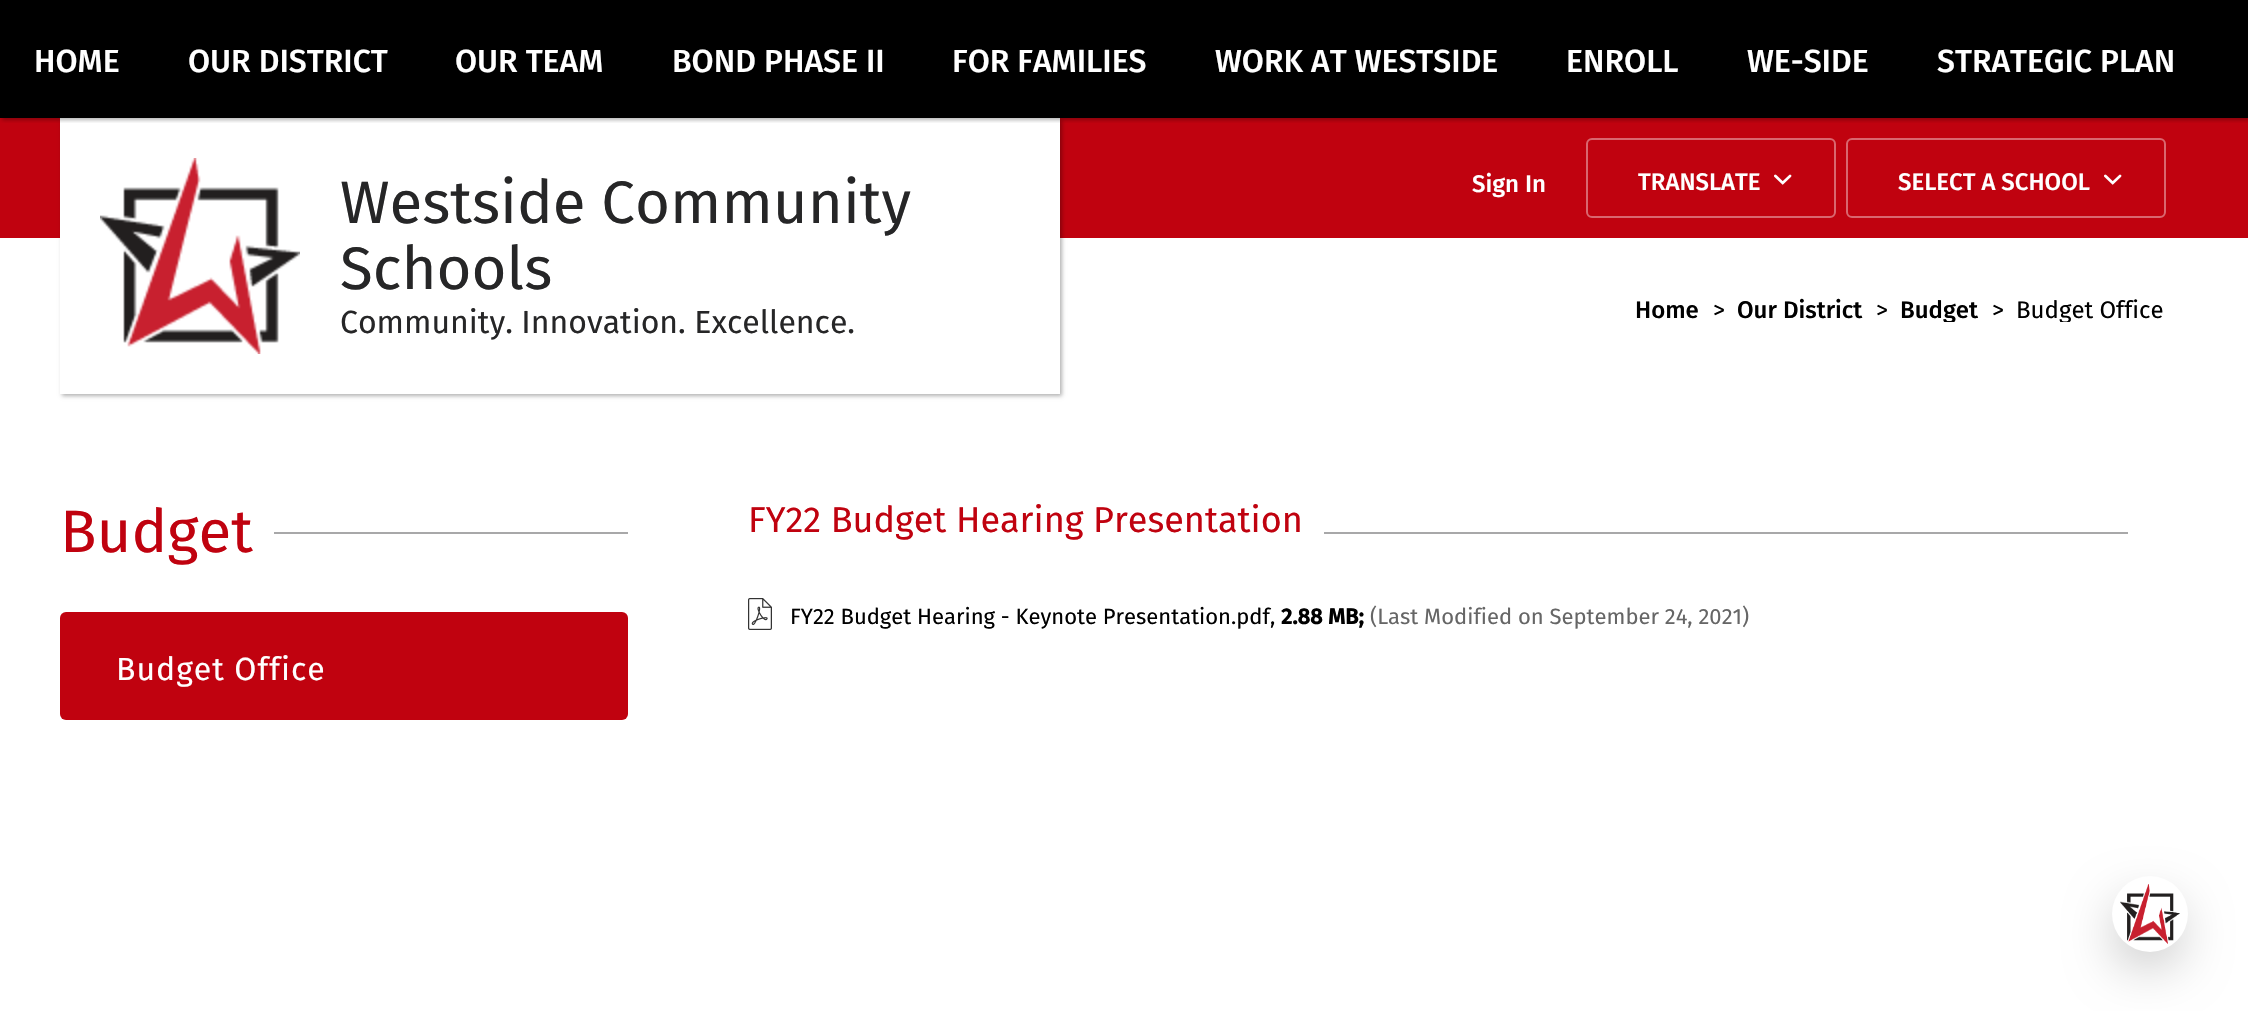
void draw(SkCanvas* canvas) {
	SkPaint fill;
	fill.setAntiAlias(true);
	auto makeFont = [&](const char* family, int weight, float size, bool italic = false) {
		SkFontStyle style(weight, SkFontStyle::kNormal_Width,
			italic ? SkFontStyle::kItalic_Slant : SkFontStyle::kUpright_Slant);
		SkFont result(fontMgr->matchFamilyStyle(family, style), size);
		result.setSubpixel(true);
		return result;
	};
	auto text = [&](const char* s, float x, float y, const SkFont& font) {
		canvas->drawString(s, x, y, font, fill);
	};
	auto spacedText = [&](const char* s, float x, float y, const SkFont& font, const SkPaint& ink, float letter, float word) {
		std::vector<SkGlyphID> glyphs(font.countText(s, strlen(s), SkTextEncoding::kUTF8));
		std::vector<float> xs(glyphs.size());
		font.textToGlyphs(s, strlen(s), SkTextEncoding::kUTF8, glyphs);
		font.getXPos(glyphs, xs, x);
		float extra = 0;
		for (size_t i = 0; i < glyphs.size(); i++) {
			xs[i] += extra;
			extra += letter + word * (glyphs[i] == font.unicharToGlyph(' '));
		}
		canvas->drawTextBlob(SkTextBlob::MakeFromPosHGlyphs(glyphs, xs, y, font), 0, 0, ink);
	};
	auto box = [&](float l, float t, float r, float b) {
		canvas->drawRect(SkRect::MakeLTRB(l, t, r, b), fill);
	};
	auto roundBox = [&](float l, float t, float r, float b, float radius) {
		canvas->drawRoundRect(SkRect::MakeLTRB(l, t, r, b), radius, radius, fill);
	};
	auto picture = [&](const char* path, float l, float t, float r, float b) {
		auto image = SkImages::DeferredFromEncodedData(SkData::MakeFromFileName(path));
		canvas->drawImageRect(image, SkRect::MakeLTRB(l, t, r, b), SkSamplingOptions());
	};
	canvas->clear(0xFFFFFFFF);
	fill.setColor(0xFF000000);
	box(0, 0, 2248, 118);
	fill.setColor(0xFFC0020F);
	box(0, 118, 2248, 238);
	fill.setColor(0x4D000000);
	fill.setMaskFilter(SkMaskFilter::MakeBlur(kNormal_SkBlurStyle, 2));
	canvas->drawRect(SkRect::MakeLTRB(62, 120, 1062, 396), fill);
	fill.setMaskFilter(nullptr);
	fill.setColor(0xFFFFFFFF);
	box(60, 118, 1060, 394);
	canvas->save();
	canvas->clipRect(SkRect::MakeLTRB(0, 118, 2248, 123));
	fill.setColor(0x4D000000);
	fill.setMaskFilter(SkMaskFilter::MakeBlur(kNormal_SkBlurStyle, 2));
	canvas->drawRect(SkRect::MakeLTRB(2, 2, 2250, 120), fill);
	fill.setMaskFilter(nullptr);
	canvas->restore();
	picture("image0.png", 100, 158, 300, 354);
	fill.setStyle(SkPaint::kStroke_Style);
	fill.setStrokeWidth(2);
	fill.setColor(0xFFD9676F);
	canvas->drawRoundRect(SkRect::MakeLTRB(1587, 139, 1835, 217), 5, 5, fill);
	picture("image1.png", 1774, 174, 1792, 185);
	canvas->drawRoundRect(SkRect::MakeLTRB(1847, 139, 2165, 217), 5, 5, fill);
	picture("image1.png", 2104, 174, 2122, 185);
	fill.setStyle(SkPaint::kFill_Style);
	fill.setColor(0xFFA8A8A9);
	box(274, 532, 628, 534);
	fill.setColor(0xFFC0020F);
	roundBox(60, 612, 628, 720, 6);
	fill.setColor(0xFFA8A8A9);
	box(1324, 532, 2128, 534);
	picture("image2.png", 748, 598, 772, 630);
	fill.setColor(0x52000000);
	fill.setMaskFilter(SkMaskFilter::MakeBlur(kNormal_SkBlurStyle, 27));
	canvas->drawRoundRect(SkRect::MakeLTRB(2120, 906, 2176, 962), 28, 28, fill);
	fill.setMaskFilter(nullptr);
	fill.setColor(0xFFFFFFFF);
	canvas->drawCircle(2150, 914, 38, fill);
	picture("image3.png", 2120, 884, 2180, 944);
	auto font1 = makeFont("Fira Sans", 500, 32);
	text("HOME", 34, 72, font1);
	text("OUR DISTRICT", 188, 72, font1);
	text("OUR TEAM", 455, 72, font1);
	text("BOND PHASE II", 672, 72, font1);
	text("FOR FAMILIES", 952, 72, font1);
	text("WORK AT WESTSIDE", 1215, 72, font1);
	text("ENROLL", 1566, 72, font1);
	text("WE-SIDE", 1747, 72, font1);
	text("STRATEGIC PLAN", 1937, 72, font1);
	auto font2 = makeFont("Fira Sans", 400, 60);
	fill.setColor(0xFF262627);
	text("Westside Community", 340, 223, font2);
	text("Schools", 340, 289, font2);
	auto font3 = makeFont("Fira Sans", 400, 32);
	text("Community. Innovation. Excellence.", 340, 333, font3);
	auto font4 = makeFont("Fira Sans", 500, 24);
	fill.setColor(0xFFFFFFFF);
	text("Sign In", 1472, 192, font4);
	text("TRANSLATE", 1638, 190, font4);
	text("SELECT A SCHOOL", 1898, 190, font4);
	fill.setColor(0xFF000000);
	text("Home", 1635, 318, font4);
	auto font5 = makeFont("Fira Sans", 400, 24);
	text(">", 1713, 318, font5);
	text("Our District", 1737, 318, font4);
	text(">", 1876, 318, font5);
	canvas->save();
	canvas->clipRect(SkRect::MakeLTRB(1636, 298, 2188, 322));
	text("Budget", 1900, 318, font4);
	canvas->restore();
	text(">", 1992, 318, font5);
	canvas->save();
	canvas->clipRect(SkRect::MakeLTRB(1636, 298, 2188, 322));
	text("Budget Office", 2016, 318, font5);
	canvas->restore();
	fill.setColor(0xFFC0020F);
	text("Budget", 60, 552, font2);
	fill.setColor(0xFFFFFFFF);
	spacedText("Budget Office", 116, 680, font3, fill, 1, 0);
	auto font6 = makeFont("Fira Sans", 400, 36);
	fill.setColor(0xFFC0020F);
	text("FY22 Budget Hearing Presentation", 748, 532, font6);
	auto font7 = makeFont("Fira Sans", 400, 22);
	fill.setColor(0xFF000000);
	text("FY22 Budget Hearing - Keynote Presentation.pdf,", 790, 624, font7);
	auto font8 = makeFont("Fira Sans", 700, 22);
	text("2.88 MB;", 1281, 624, font8);
	fill.setColor(0xFF666666);
	text("(Last Modified on September 24, 2021)", 1370, 624, font7);
}
